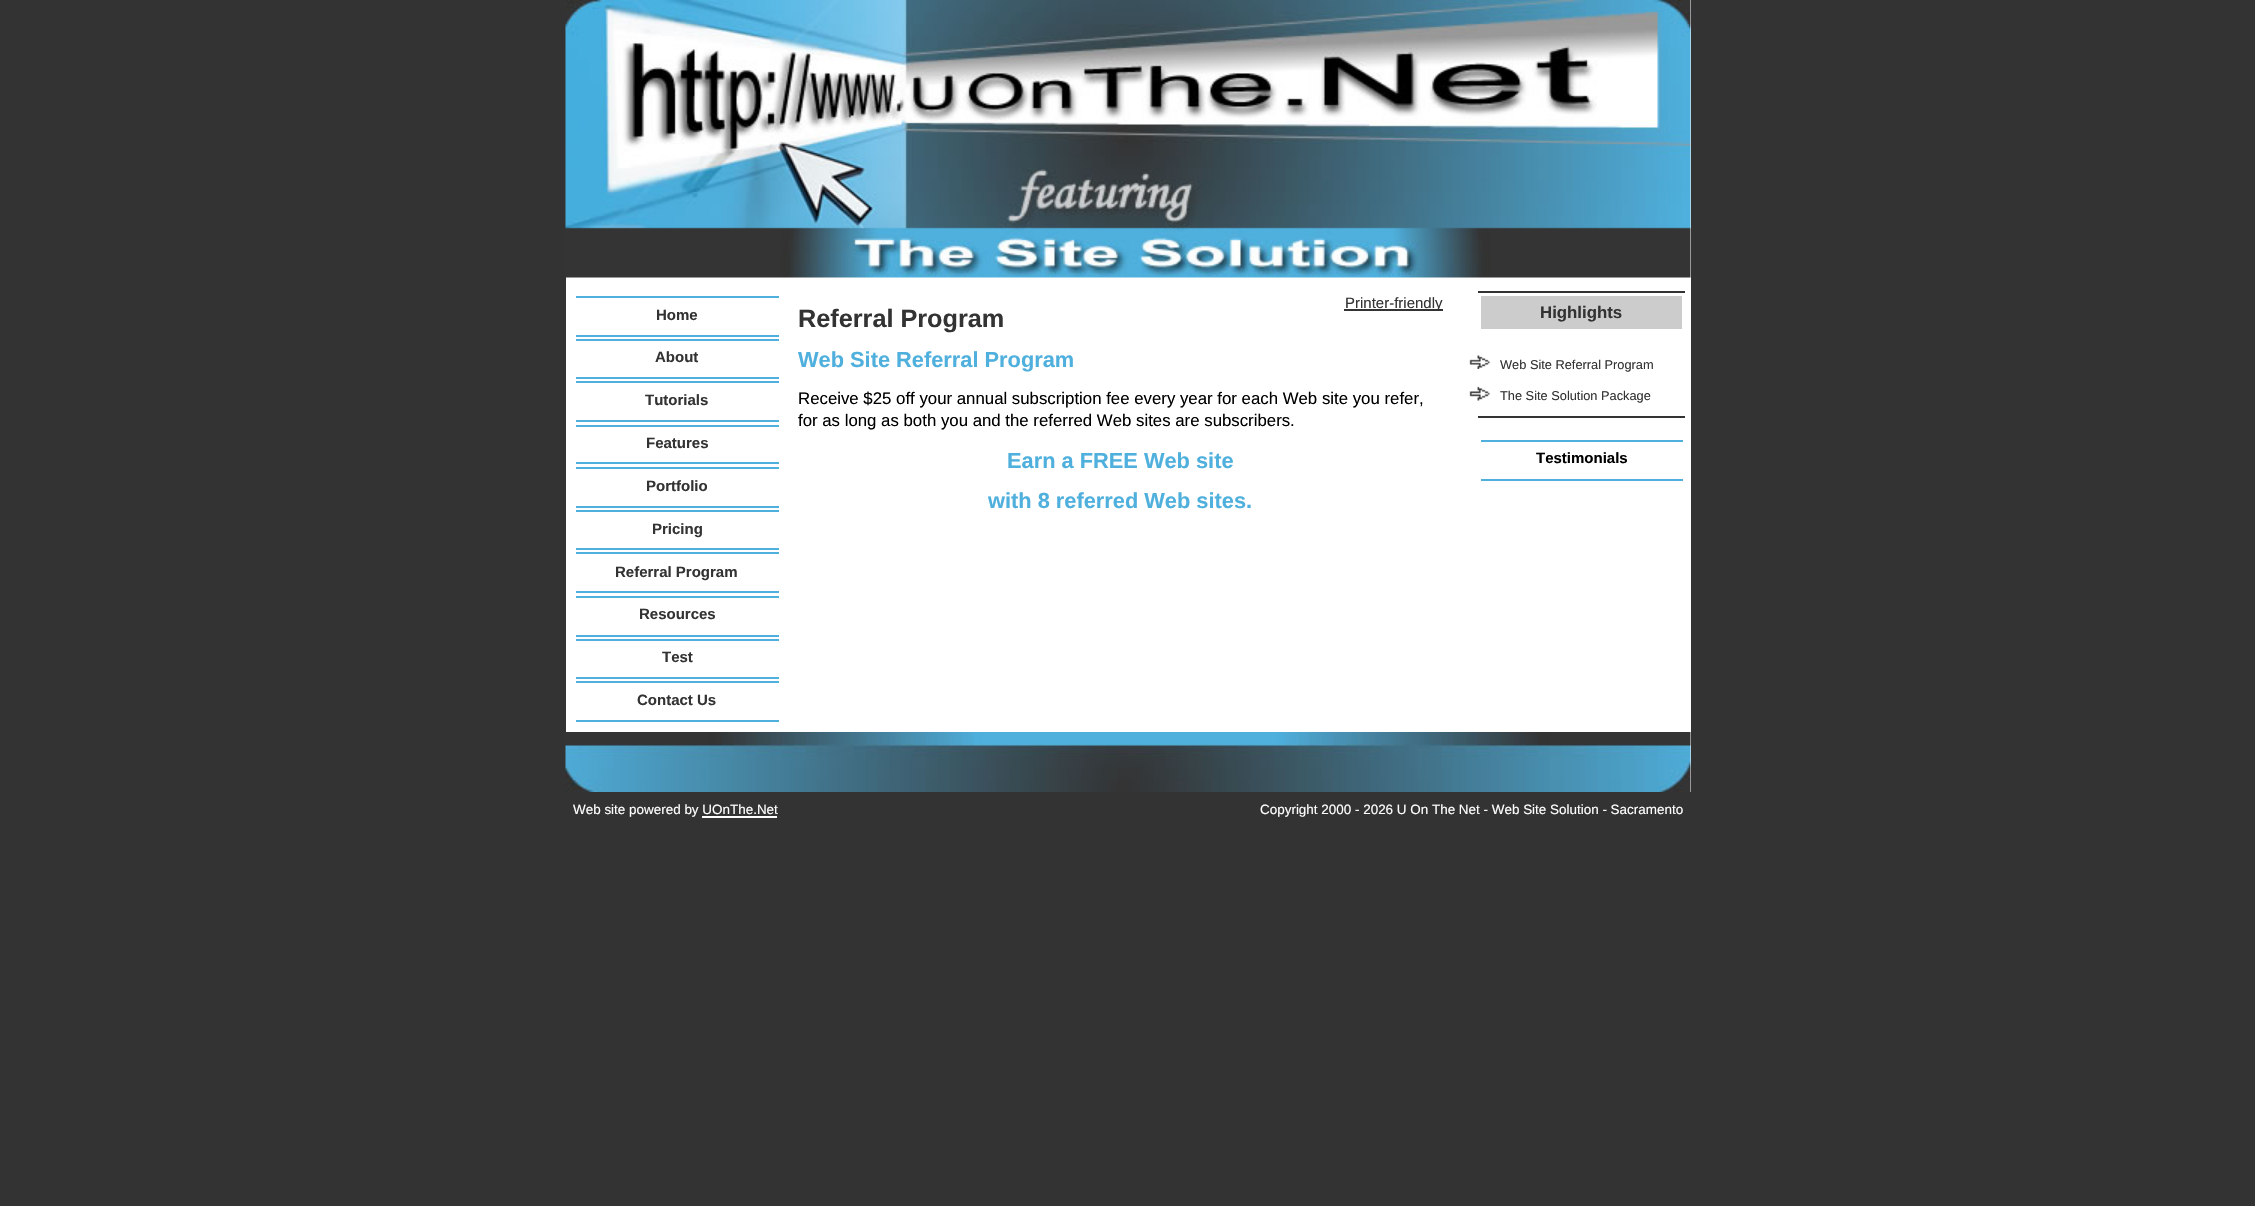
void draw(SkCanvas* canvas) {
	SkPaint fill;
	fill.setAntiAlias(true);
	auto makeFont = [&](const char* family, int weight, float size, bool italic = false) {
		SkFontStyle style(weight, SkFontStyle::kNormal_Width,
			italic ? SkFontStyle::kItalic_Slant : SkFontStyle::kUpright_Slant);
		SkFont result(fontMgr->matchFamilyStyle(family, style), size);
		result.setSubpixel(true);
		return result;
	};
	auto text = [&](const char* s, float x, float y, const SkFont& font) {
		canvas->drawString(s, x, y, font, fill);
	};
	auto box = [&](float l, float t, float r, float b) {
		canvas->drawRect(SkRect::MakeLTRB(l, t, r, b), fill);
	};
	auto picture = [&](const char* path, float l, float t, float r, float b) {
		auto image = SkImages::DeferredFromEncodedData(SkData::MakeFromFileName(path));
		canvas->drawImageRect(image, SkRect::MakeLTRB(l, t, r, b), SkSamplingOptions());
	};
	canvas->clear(0xFF333333);
	fill.setColor(0xFFFFFFFF);
	box(566, 0, 1691, 792);
	picture("image0.png", 565, 0, 1691, 278);
	fill.setColor(0xFF4FB0DD);
	box(576, 296, 779, 298);
	box(576, 335, 779, 337);
	box(576, 339, 779, 341);
	box(576, 377, 779, 379);
	box(576, 381, 779, 383);
	box(576, 420, 779, 422);
	box(576, 425, 779, 427);
	box(576, 462, 779, 464);
	box(576, 467, 779, 469);
	box(576, 506, 779, 508);
	box(576, 510, 779, 512);
	box(576, 548, 779, 550);
	box(576, 552, 779, 554);
	box(576, 591, 779, 593);
	box(576, 596, 779, 598);
	box(576, 635, 779, 637);
	box(576, 639, 779, 641);
	box(576, 677, 779, 679);
	box(576, 681, 779, 683);
	box(576, 720, 779, 722);
	fill.setColor(0xFF333333);
	box(1344, 309, 1443, 311);
	box(1478, 291, 1685, 293);
	box(1478, 416, 1685, 418);
	fill.setColor(0xFFCCCCCC);
	box(1481, 296, 1682, 329);
	picture("image1.png", 1469, 355, 1490, 369);
	picture("image2.png", 1469, 386, 1490, 401);
	fill.setColor(0xFF4FB0DD);
	box(1481, 440, 1683, 442);
	box(1481, 479, 1683, 481);
	picture("image3.png", 565, 732, 1691, 792);
	fill.setColor(0xFFFFFFFF);
	box(702, 816, 777, 818);
	auto font1 = makeFont("Liberation Sans", 700, 15);
	fill.setColor(0xFF333333);
	text("Home", 656, 320, font1);
	text("About", 655, 362, font1);
	text("Tutorials", 645, 405, font1);
	text("Features", 646, 448, font1);
	text("Portfolio", 646, 491, font1);
	text("Pricing", 652, 534, font1);
	text("Referral Program", 615, 577, font1);
	text("Resources", 639, 619, font1);
	text("Test", 662, 662, font1);
	text("Contact Us", 637, 705, font1);
	auto font2 = makeFont("Liberation Sans", 400, 15);
	text("Printer-friendly", 1345, 308, font2);
	auto font3 = makeFont("Liberation Sans", 700, 25.25f);
	text("Referral Program", 798, 327, font3);
	auto font4 = makeFont("Liberation Sans", 700, 21.8f);
	fill.setColor(0xFF4FB0DD);
	text("Web Site Referral Program", 798, 367, font4);
	auto font5 = makeFont("Liberation Sans", 400, 16.8f);
	fill.setColor(0xFF000000);
	text("Receive $25 off your annual subscription fee every year for each Web site you refer,", 798, 404, font5);
	text("for as long as both you and the referred Web sites are subscribers.", 798, 426, font5);
	fill.setColor(0xFF4FB0DD);
	text("Earn a FREE Web site", 1007, 468, font4);
	text("with 8 referred Web sites.", 988, 508, font4);
	auto font6 = makeFont("Liberation Sans", 700, 16.8f);
	fill.setColor(0xFF333333);
	text("Highlights", 1540, 318, font6);
	auto font7 = makeFont("Liberation Sans", 400, 12.8f);
	text("Web Site Referral Program", 1500, 369, font7);
	text("The Site Solution Package", 1500, 400, font7);
	fill.setColor(0xFF000000);
	text("Testimonials", 1536, 463, font1);
	auto font8 = makeFont("Liberation Sans", 400, 13.45f);
	fill.setColor(0xFFFFFFFF);
	text("Web site powered by UOnThe.Net", 573, 814, font8);
	text("Copyright 2000 - 2026 U On The Net - Web Site Solution - Sacramento", 1260, 814, font8);
}
